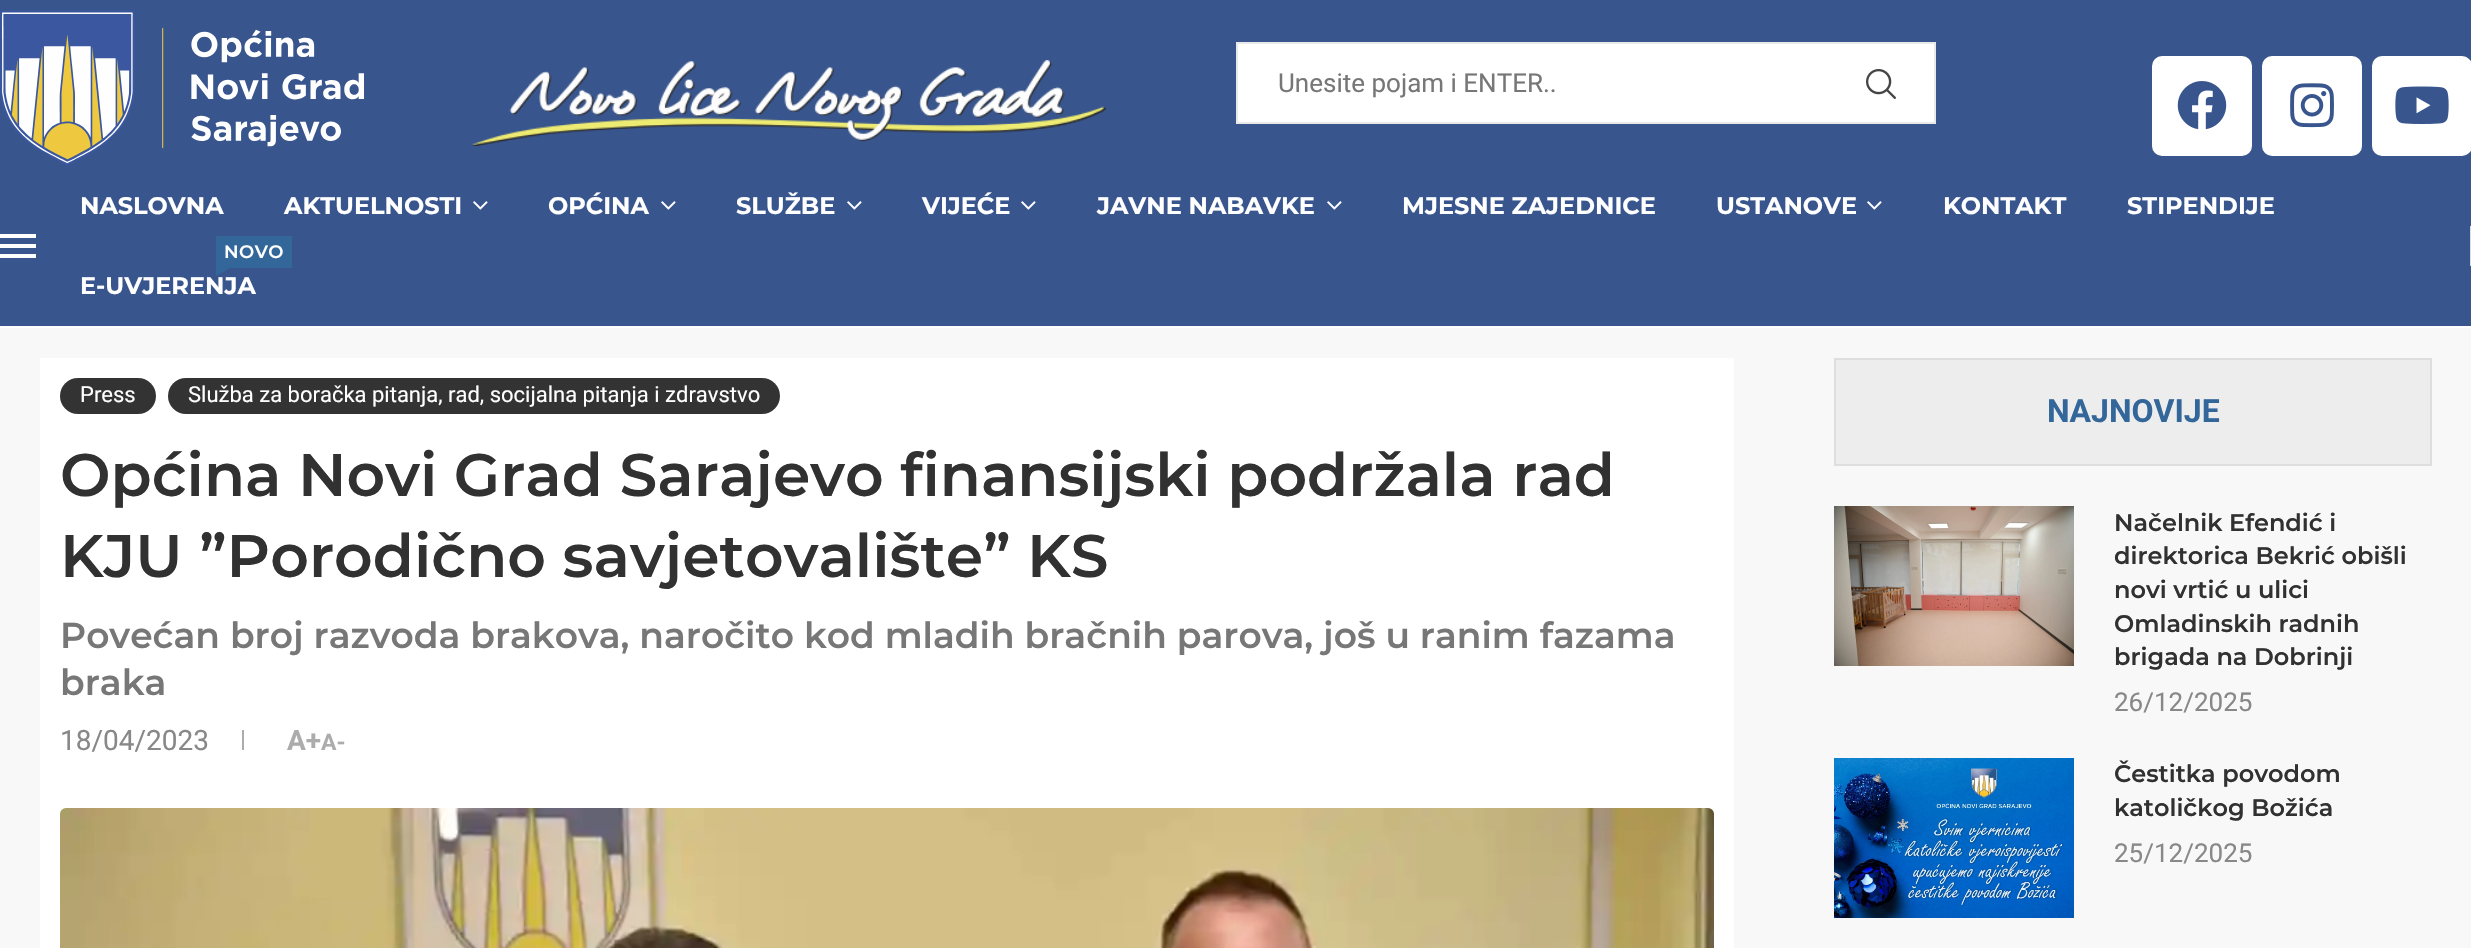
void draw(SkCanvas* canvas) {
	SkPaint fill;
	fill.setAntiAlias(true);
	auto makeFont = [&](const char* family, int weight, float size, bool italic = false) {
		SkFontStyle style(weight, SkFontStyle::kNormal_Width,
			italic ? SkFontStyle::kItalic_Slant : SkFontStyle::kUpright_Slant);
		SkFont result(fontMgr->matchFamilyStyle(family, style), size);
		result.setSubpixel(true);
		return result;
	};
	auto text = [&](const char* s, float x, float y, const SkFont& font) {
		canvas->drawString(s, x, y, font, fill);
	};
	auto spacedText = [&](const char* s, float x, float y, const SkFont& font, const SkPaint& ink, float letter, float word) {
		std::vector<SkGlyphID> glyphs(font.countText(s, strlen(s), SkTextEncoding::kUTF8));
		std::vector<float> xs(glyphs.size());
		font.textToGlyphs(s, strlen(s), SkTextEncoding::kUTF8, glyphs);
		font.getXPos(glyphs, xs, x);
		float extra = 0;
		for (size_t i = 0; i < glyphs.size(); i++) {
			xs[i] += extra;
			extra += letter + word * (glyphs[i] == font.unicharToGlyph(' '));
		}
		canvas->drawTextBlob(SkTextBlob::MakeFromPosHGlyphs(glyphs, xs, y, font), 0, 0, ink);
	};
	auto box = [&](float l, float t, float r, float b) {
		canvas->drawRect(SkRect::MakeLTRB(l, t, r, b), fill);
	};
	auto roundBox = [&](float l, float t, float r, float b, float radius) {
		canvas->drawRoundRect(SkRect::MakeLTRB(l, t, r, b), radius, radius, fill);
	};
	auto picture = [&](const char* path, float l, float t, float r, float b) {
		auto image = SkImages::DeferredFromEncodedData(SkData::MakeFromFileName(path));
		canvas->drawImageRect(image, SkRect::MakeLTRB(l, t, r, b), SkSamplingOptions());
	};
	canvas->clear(0xFFFFFFFF);
	fill.setColor(0xFF38558D);
	box(0, 0, 2471, 326);
	picture("image0.png", 0, 10, 364, 166);
	picture("image1.png", 472, 60, 1106, 146);
	fill.setColor(0xFFFFFFFF);
	canvas->drawRect(SkRect::MakeLTRB(1237, 43, 1935, 123), fill);
	fill.setStyle(SkPaint::kStroke_Style);
	fill.setStrokeWidth(2);
	fill.setColor(0xFFE9E9E9);
	canvas->drawRect(SkRect::MakeLTRB(1237, 43, 1935, 123), fill);
	picture("image2.png", 1866, 69, 1896, 99);
	fill.setStyle(SkPaint::kFill_Style);
	fill.setColor(0xFFFFFFFF);
	roundBox(2152, 56, 2252, 156, 10);
	picture("image3.png", 2177, 81, 2227, 130);
	roundBox(2262, 56, 2362, 156, 10);
	picture("image4.png", 2290, 83, 2334, 128);
	roundBox(2372, 56, 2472, 156, 10);
	picture("image5.png", 2395, 86, 2449, 124);
	box(0, 234, 36, 238);
	box(0, 254, 36, 258);
	box(0, 244, 36, 248);
	picture("image6.png", 473, 201, 488, 210);
	picture("image6.png", 661, 201, 676, 210);
	picture("image6.png", 847, 201, 862, 210);
	picture("image6.png", 1021, 201, 1036, 210);
	picture("image6.png", 1327, 201, 1342, 210);
	picture("image6.png", 1867, 201, 1882, 210);
	fill.setColor(0xFF336699);
	box(216, 236, 292, 268);
	canvas->drawPath(SkPathBuilder().moveTo(216, 268).lineTo(230, 268).lineTo(216, 276).close().detach(), fill);
	fill.setColor(0xFFDEDEDE);
	box(2470, 226, 2471, 266);
	fill.setColor(0xFFF8F8F8);
	box(0, 328, 2471, 948);
	fill.setColor(0xFFFFFFFF);
	box(40, 358, 1734, 948);
	fill.setColor(0xFF333333);
	roundBox(60, 378, 156, 414, 18);
	roundBox(168, 378, 780, 414, 18);
	fill.setColor(0xFFACACAC);
	box(242, 730, 244, 750);
	picture("image7.png", 60, 808, 1714, 948);
	fill.setColor(0xFFEDEDED);
	canvas->drawRect(SkRect::MakeLTRB(1835, 359, 2431, 465), fill);
	fill.setStyle(SkPaint::kStroke_Style);
	fill.setColor(0xFFDEDEDE);
	canvas->drawRect(SkRect::MakeLTRB(1835, 359, 2431, 465), fill);
	picture("image8.png", 1834, 506, 2074, 666);
	picture("image9.png", 1834, 758, 2074, 918);
	auto font1 = makeFont("Roboto", 400, 26);
	fill.setStyle(SkPaint::kFill_Style);
	fill.setColor(0xFF777777);
	text("Unesite pojam i ENTER..", 1278, 92, font1);
	auto font2 = makeFont("Montserrat", 700, 24);
	fill.setColor(0xFFFFFFFF);
	text("NASLOVNA", 80, 214, font2);
	text("AKTUELNOSTI", 284, 214, font2);
	text("OPĆINA", 548, 214, font2);
	text("SLUŽBE", 736, 214, font2);
	text("VIJEĆE", 922, 214, font2);
	text("JAVNE NABAVKE", 1097, 214, font2);
	text("MJESNE ZAJEDNICE", 1402, 214, font2);
	text("USTANOVE", 1716, 214, font2);
	text("KONTAKT", 1943, 214, font2);
	text("STIPENDIJE", 2127, 214, font2);
	auto font3 = makeFont("Montserrat", 600, 18);
	spacedText("NOVO", 224, 258, font3, fill, 0.5f, 0);
	text("E-UVJERENJA", 80, 294, font2);
	auto font4 = makeFont("Roboto", 400, 22);
	text("Press", 80, 402, font4);
	text("Služba za boračka pitanja, rad, socijalna pitanja i zdravstvo", 188, 402, font4);
	auto font5 = makeFont("Montserrat", 600, 60);
	fill.setColor(0xFF313131);
	text("Općina Novi Grad Sarajevo finansijski podržala rad", 60, 496, font5);
	text("KJU ”Porodično savjetovalište” KS", 60, 577, font5);
	auto font6 = makeFont("Montserrat", 600, 36);
	fill.setColor(0xFF777777);
	text("Povećan broj razvoda brakova, naročito kod mladih bračnih parova, još u ranim fazama", 60, 648, font6);
	text("braka", 60, 695, font6);
	auto font7 = makeFont("Roboto", 400, 28);
	fill.setColor(0xFF888888);
	text("18/04/2023", 60, 750, font7);
	auto font8 = makeFont("Roboto", 700, 28);
	fill.setColor(0xFFACACAC);
	text("A+", 287, 750, font8);
	auto font9 = makeFont("Roboto", 700, 23);
	text("A-", 321, 750, font9);
	auto font10 = makeFont("Roboto", 700, 32);
	fill.setColor(0xFF336699);
	text("NAJNOVIJE", 2047, 422, font10);
	auto font11 = makeFont("Montserrat", 600, 24);
	fill.setColor(0xFF313131);
	text("Načelnik Efendić i", 2114, 531, font11);
	text("direktorica Bekrić obišli", 2114, 564, font11);
	text("novi vrtić u ulici", 2114, 598, font11);
	text("Omladinskih radnih", 2114, 632, font11);
	text("brigada na Dobrinji", 2114, 665, font11);
	fill.setColor(0xFF888888);
	text("26/12/2025", 2114, 711, font1);
	fill.setColor(0xFF313131);
	text("Čestitka povodom", 2114, 782, font11);
	text("katoličkog Božića", 2114, 816, font11);
	fill.setColor(0xFF888888);
	text("25/12/2025", 2114, 862, font1);
}
